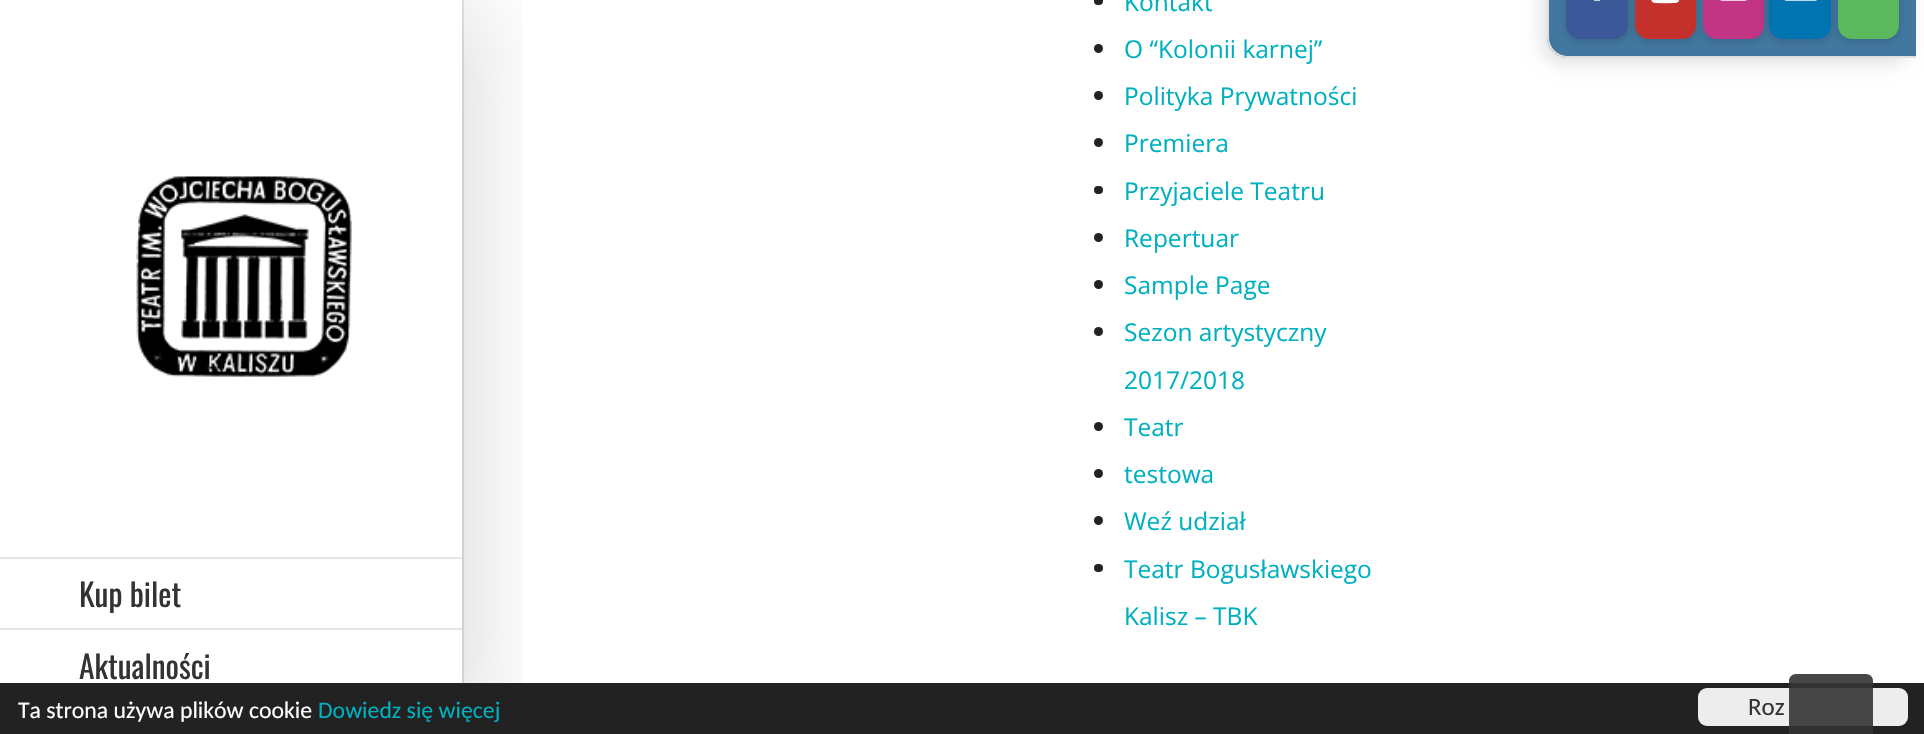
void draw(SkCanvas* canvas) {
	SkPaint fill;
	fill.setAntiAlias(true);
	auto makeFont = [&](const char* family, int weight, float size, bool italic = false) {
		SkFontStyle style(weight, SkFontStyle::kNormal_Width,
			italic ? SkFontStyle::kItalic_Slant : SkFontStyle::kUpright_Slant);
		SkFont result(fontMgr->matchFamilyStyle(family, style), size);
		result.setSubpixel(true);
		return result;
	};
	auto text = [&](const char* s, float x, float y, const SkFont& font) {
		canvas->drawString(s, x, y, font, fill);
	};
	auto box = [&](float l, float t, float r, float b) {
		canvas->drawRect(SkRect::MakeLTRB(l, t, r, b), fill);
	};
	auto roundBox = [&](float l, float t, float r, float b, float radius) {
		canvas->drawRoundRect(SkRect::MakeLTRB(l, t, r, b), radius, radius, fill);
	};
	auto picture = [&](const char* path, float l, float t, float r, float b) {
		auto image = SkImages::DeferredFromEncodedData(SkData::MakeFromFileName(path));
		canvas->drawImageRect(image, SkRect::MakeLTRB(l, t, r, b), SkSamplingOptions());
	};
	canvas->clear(0xFFFFFFFF);
	fill.setColor(0xFFE5E5E5);
	box(462, 0, 464, 683);
	picture("image0.png", 136, 176, 352, 377);
	box(0, 557, 462, 559);
	box(0, 628, 462, 630);
	canvas->save();
	canvas->clipRect(SkRect::MakeLTRB(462, 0, 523, 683));
	fill.setColor(0x24000000);
	fill.setMaskFilter(SkMaskFilter::MakeBlur(kNormal_SkBlurStyle, 44));
	canvas->drawRect(SkRect::MakeLTRB(21, 4, 476, 732), fill);
	fill.setMaskFilter(nullptr);
	canvas->restore();
	fill.setColor(0xFF222222);
	roundBox(1094, -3, 1103, 5, 4);
	canvas->drawCircle(1098.5f, 48.5f, 4.5f, fill);
	canvas->drawCircle(1098.5f, 95.5f, 4.5f, fill);
	canvas->drawCircle(1098.5f, 142.5f, 4.5f, fill);
	roundBox(1094, 186, 1103, 194, 4);
	canvas->drawCircle(1098.5f, 237.5f, 4.5f, fill);
	canvas->drawCircle(1098.5f, 284.5f, 4.5f, fill);
	canvas->drawCircle(1098.5f, 331.5f, 4.5f, fill);
	canvas->drawCircle(1098.5f, 426.5f, 4.5f, fill);
	canvas->drawCircle(1098.5f, 473.5f, 4.5f, fill);
	canvas->drawCircle(1098.5f, 520.5f, 4.5f, fill);
	roundBox(1094, 564, 1103, 572, 4);
	fill.setColor(0x1F000000);
	fill.setMaskFilter(SkMaskFilter::MakeBlur(kNormal_SkBlurStyle, 9));
	canvas->drawRoundRect(SkRect::MakeLTRB(1542, -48, 1911, 63), 21, 21, fill);
	fill.setMaskFilter(nullptr);
	fill.setColor(0xFF4278A0);
	canvas->drawPath(SkPathBuilder().moveTo(1568, -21).lineTo(1916, -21).lineTo(1916, 58).lineTo(1568, 58).cubicTo(1556.5f, 58, 1547, 48.5f, 1547, 37).lineTo(1547, 0).cubicTo(1547, -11.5f, 1556.5f, -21, 1568, -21).close().detach(), fill);
	fill.setColor(0xFFE0E0E0);
	canvas->drawPath(SkPathBuilder(SkPathFillType::kEvenOdd).moveTo(1568, -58).lineTo(1916, -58).lineTo(1916, 58).lineTo(1568, 58).cubicTo(1556, 58, 1547, 48, 1547, 37).lineTo(1547, -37).cubicTo(1547, -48, 1556, -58, 1568, -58).close().moveTo(1568, -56).lineTo(1916, -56).lineTo(1916, 56).lineTo(1568, 56).cubicTo(1557, 56, 1549, 47, 1549, 37).lineTo(1549, -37).cubicTo(1549, -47, 1557, -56, 1568, -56).close().detach(), fill);
	fill.setColor(0x26000000);
	fill.setMaskFilter(SkMaskFilter::MakeBlur(kNormal_SkBlurStyle, 4.5f));
	canvas->drawRoundRect(SkRect::MakeLTRB(1566, -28, 1628, 42), 14, 14, fill);
	fill.setMaskFilter(nullptr);
	fill.setColor(0xFF3B5998);
	roundBox(1566, -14, 1628, 39, 14);
	picture("image1.png", 1594, 0, 1601, 1);
	fill.setColor(0x26000000);
	fill.setMaskFilter(SkMaskFilter::MakeBlur(kNormal_SkBlurStyle, 4.5f));
	canvas->drawRoundRect(SkRect::MakeLTRB(1635, -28, 1696, 42), 14, 14, fill);
	fill.setMaskFilter(nullptr);
	fill.setColor(0xFFC4302B);
	roundBox(1635, -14, 1696, 39, 14);
	picture("image2.png", 1651, 0, 1680, 4);
	fill.setColor(0x26000000);
	fill.setMaskFilter(SkMaskFilter::MakeBlur(kNormal_SkBlurStyle, 4.5f));
	canvas->drawRoundRect(SkRect::MakeLTRB(1703, -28, 1764, 42), 14, 14, fill);
	fill.setMaskFilter(nullptr);
	fill.setColor(0xFFC13584);
	roundBox(1703, -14, 1764, 39, 14);
	picture("image3.png", 1720, 0, 1747, 1);
	fill.setColor(0x26000000);
	fill.setMaskFilter(SkMaskFilter::MakeBlur(kNormal_SkBlurStyle, 4.5f));
	canvas->drawRoundRect(SkRect::MakeLTRB(1769, -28, 1831, 42), 14, 14, fill);
	fill.setMaskFilter(nullptr);
	fill.setColor(0xFF0073B1);
	roundBox(1769, -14, 1831, 39, 14);
	picture("image4.png", 1784, 0, 1817, 1);
	fill.setColor(0x26000000);
	fill.setMaskFilter(SkMaskFilter::MakeBlur(kNormal_SkBlurStyle, 4.5f));
	canvas->drawRoundRect(SkRect::MakeLTRB(1838, -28, 1899, 42), 14, 14, fill);
	fill.setMaskFilter(nullptr);
	fill.setColor(0xFF5CB85C);
	roundBox(1838, -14, 1899, 39, 14);
	fill.setColor(0xFF222222);
	box(0, 683, 1924, 734);
	fill.setColor(0xFFEDEDED);
	roundBox(1698, 688, 1908, 726, 9);
	fill.setColor(0xE6333333);
	canvas->drawPath(SkPathBuilder().moveTo(1796, 674).lineTo(1866, 674).cubicTo(1870, 674, 1873, 677, 1873, 681).lineTo(1873, 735).lineTo(1789, 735).lineTo(1789, 681).cubicTo(1789, 677, 1792, 674, 1796, 674).close().detach(), fill);
	auto font1 = makeFont("Oswald", 400, 31.5f);
	fill.setColor(0xFF333333);
	text("Kup bilet", 79, 607, font1);
	text("Aktualności", 79, 679, font1);
	auto font2 = makeFont("Open Sans", 400, 24.5f);
	fill.setColor(0xFF00B0BF);
	text("Kontakt", 1124, 11, font2);
	text("O “Kolonii karnej”", 1124, 58, font2);
	text("Polityka Prywatności", 1124, 105, font2);
	text("Premiera", 1124, 152, font2);
	text("Przyjaciele Teatru", 1124, 200, font2);
	text("Repertuar", 1124, 247, font2);
	text("Sample Page", 1124, 294, font2);
	text("Sezon artystyczny", 1124, 341, font2);
	text("2017/2018", 1124, 389, font2);
	text("Teatr", 1124, 436, font2);
	text("testowa", 1124, 483, font2);
	text("Weź udział", 1124, 530, font2);
	text("Teatr Bogusławskiego", 1124, 578, font2);
	text("Kalisz – TBK", 1124, 625, font2);
	auto font3 = makeFont("Carlito", 400, 23.75f);
	fill.setColor(0xFFFFFFFF);
	text("Ta strona używa plików cookie", 18, 718, font3);
	fill.setColor(0xFF00B0BF);
	text("Dowiedz się więcej", 318, 718, font3);
	auto font4 = makeFont("Carlito", 400, 25);
	fill.setColor(0xFF333333);
	text("Roz", 1748, 715, font4);
}
